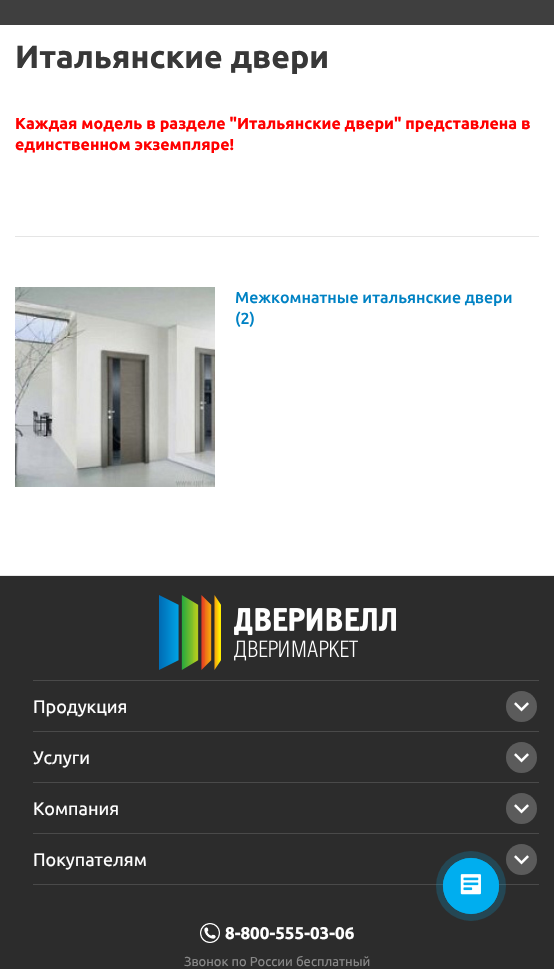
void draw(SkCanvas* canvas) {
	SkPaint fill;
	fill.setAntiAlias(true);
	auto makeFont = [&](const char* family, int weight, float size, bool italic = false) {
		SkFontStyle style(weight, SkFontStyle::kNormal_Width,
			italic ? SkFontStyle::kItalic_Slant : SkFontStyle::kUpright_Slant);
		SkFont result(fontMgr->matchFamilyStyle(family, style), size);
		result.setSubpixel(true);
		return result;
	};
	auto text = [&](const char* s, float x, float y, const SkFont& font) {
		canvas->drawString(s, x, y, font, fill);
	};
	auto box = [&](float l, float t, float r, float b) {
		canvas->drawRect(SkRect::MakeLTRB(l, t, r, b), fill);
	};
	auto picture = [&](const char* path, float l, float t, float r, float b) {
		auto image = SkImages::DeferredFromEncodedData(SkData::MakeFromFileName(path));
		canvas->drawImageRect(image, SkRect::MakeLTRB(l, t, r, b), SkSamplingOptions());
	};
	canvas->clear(0xFFFFFFFF);
	fill.setColor(0xFF3F3F3F);
	box(0, 0, 554, 25);
	fill.setColor(0xFFE5E5E5);
	box(15, 236, 539, 237);
	picture("image0.png", 15, 287, 215, 487);
	fill.setColor(0xFF2C2C2C);
	box(0, 576, 554, 969);
	fill.setColor(0xFFE7E7E7);
	box(0, 575, 554, 576);
	picture("image1.png", 159, 595, 396, 670);
	fill.setColor(0xFF4A4A4A);
	box(33, 884, 539, 885);
	box(33, 680, 539, 681);
	fill.setColor(0xFF5B5B5B);
	canvas->drawCircle(521.5f, 706.5f, 15.5f, fill);
	picture("image2.png", 514, 702, 529, 712);
	fill.setColor(0xFF4A4A4A);
	box(33, 731, 539, 732);
	fill.setColor(0xFF5B5B5B);
	canvas->drawCircle(521.5f, 757.5f, 15.5f, fill);
	picture("image2.png", 514, 753, 529, 763);
	fill.setColor(0xFF4A4A4A);
	box(33, 782, 539, 783);
	fill.setColor(0xFF5B5B5B);
	canvas->drawCircle(521.5f, 808.5f, 15.5f, fill);
	picture("image2.png", 514, 804, 529, 814);
	fill.setColor(0xFF4A4A4A);
	box(33, 833, 539, 834);
	fill.setColor(0xFF5B5B5B);
	canvas->drawCircle(521.5f, 859.5f, 15.5f, fill);
	picture("image2.png", 514, 855, 529, 865);
	picture("image3.png", 200, 923, 220, 943);
	fill.setColor(0x3300AEEF);
	canvas->drawCircle(471, 886, 35, fill);
	fill.setStyle(SkPaint::kStroke_Style);
	fill.setStrokeWidth(0.8f);
	fill.setColor(0xFF00AEEF);
	canvas->drawCircle(471, 886, 27.6f, fill);
	fill.setStyle(SkPaint::kFill_Style);
	canvas->drawCircle(471, 886, 28, fill);
	picture("image4.png", 460, 874, 481, 895);
	auto font1 = makeFont("Ubuntu", 700, 32);
	fill.setColor(0xFF383838);
	text("Итальянские двери", 15, 68, font1);
	auto font2 = makeFont("Ubuntu", 700, 16);
	fill.setColor(0xFFFF0000);
	text("Каждая модель в разделе \"Итальянские двери\" представлена в", 15, 129, font2);
	text("единственном экземпляре!", 15, 150, font2);
	auto font3 = makeFont("Ubuntu", 500, 16);
	fill.setColor(0xFF0082C4);
	text("Межкомнатные итальянские двери", 235, 303, font3);
	text("(2)", 235, 324, font3);
	auto font4 = makeFont("Ubuntu", 400, 18);
	fill.setColor(0xFFFFFFFF);
	text("Продукция", 33, 713, font4);
	text("Услуги", 33, 764, font4);
	text("Компания", 33, 815, font4);
	text("Покупателям", 33, 866, font4);
	auto font5 = makeFont("Ubuntu", 700, 17);
	text("8-800-555-03-06", 225, 939, font5);
	auto font6 = makeFont("Ubuntu", 400, 13);
	fill.setColor(0xFF888888);
	text("Звонок по России бесплатный", 184, 966, font6);
}
